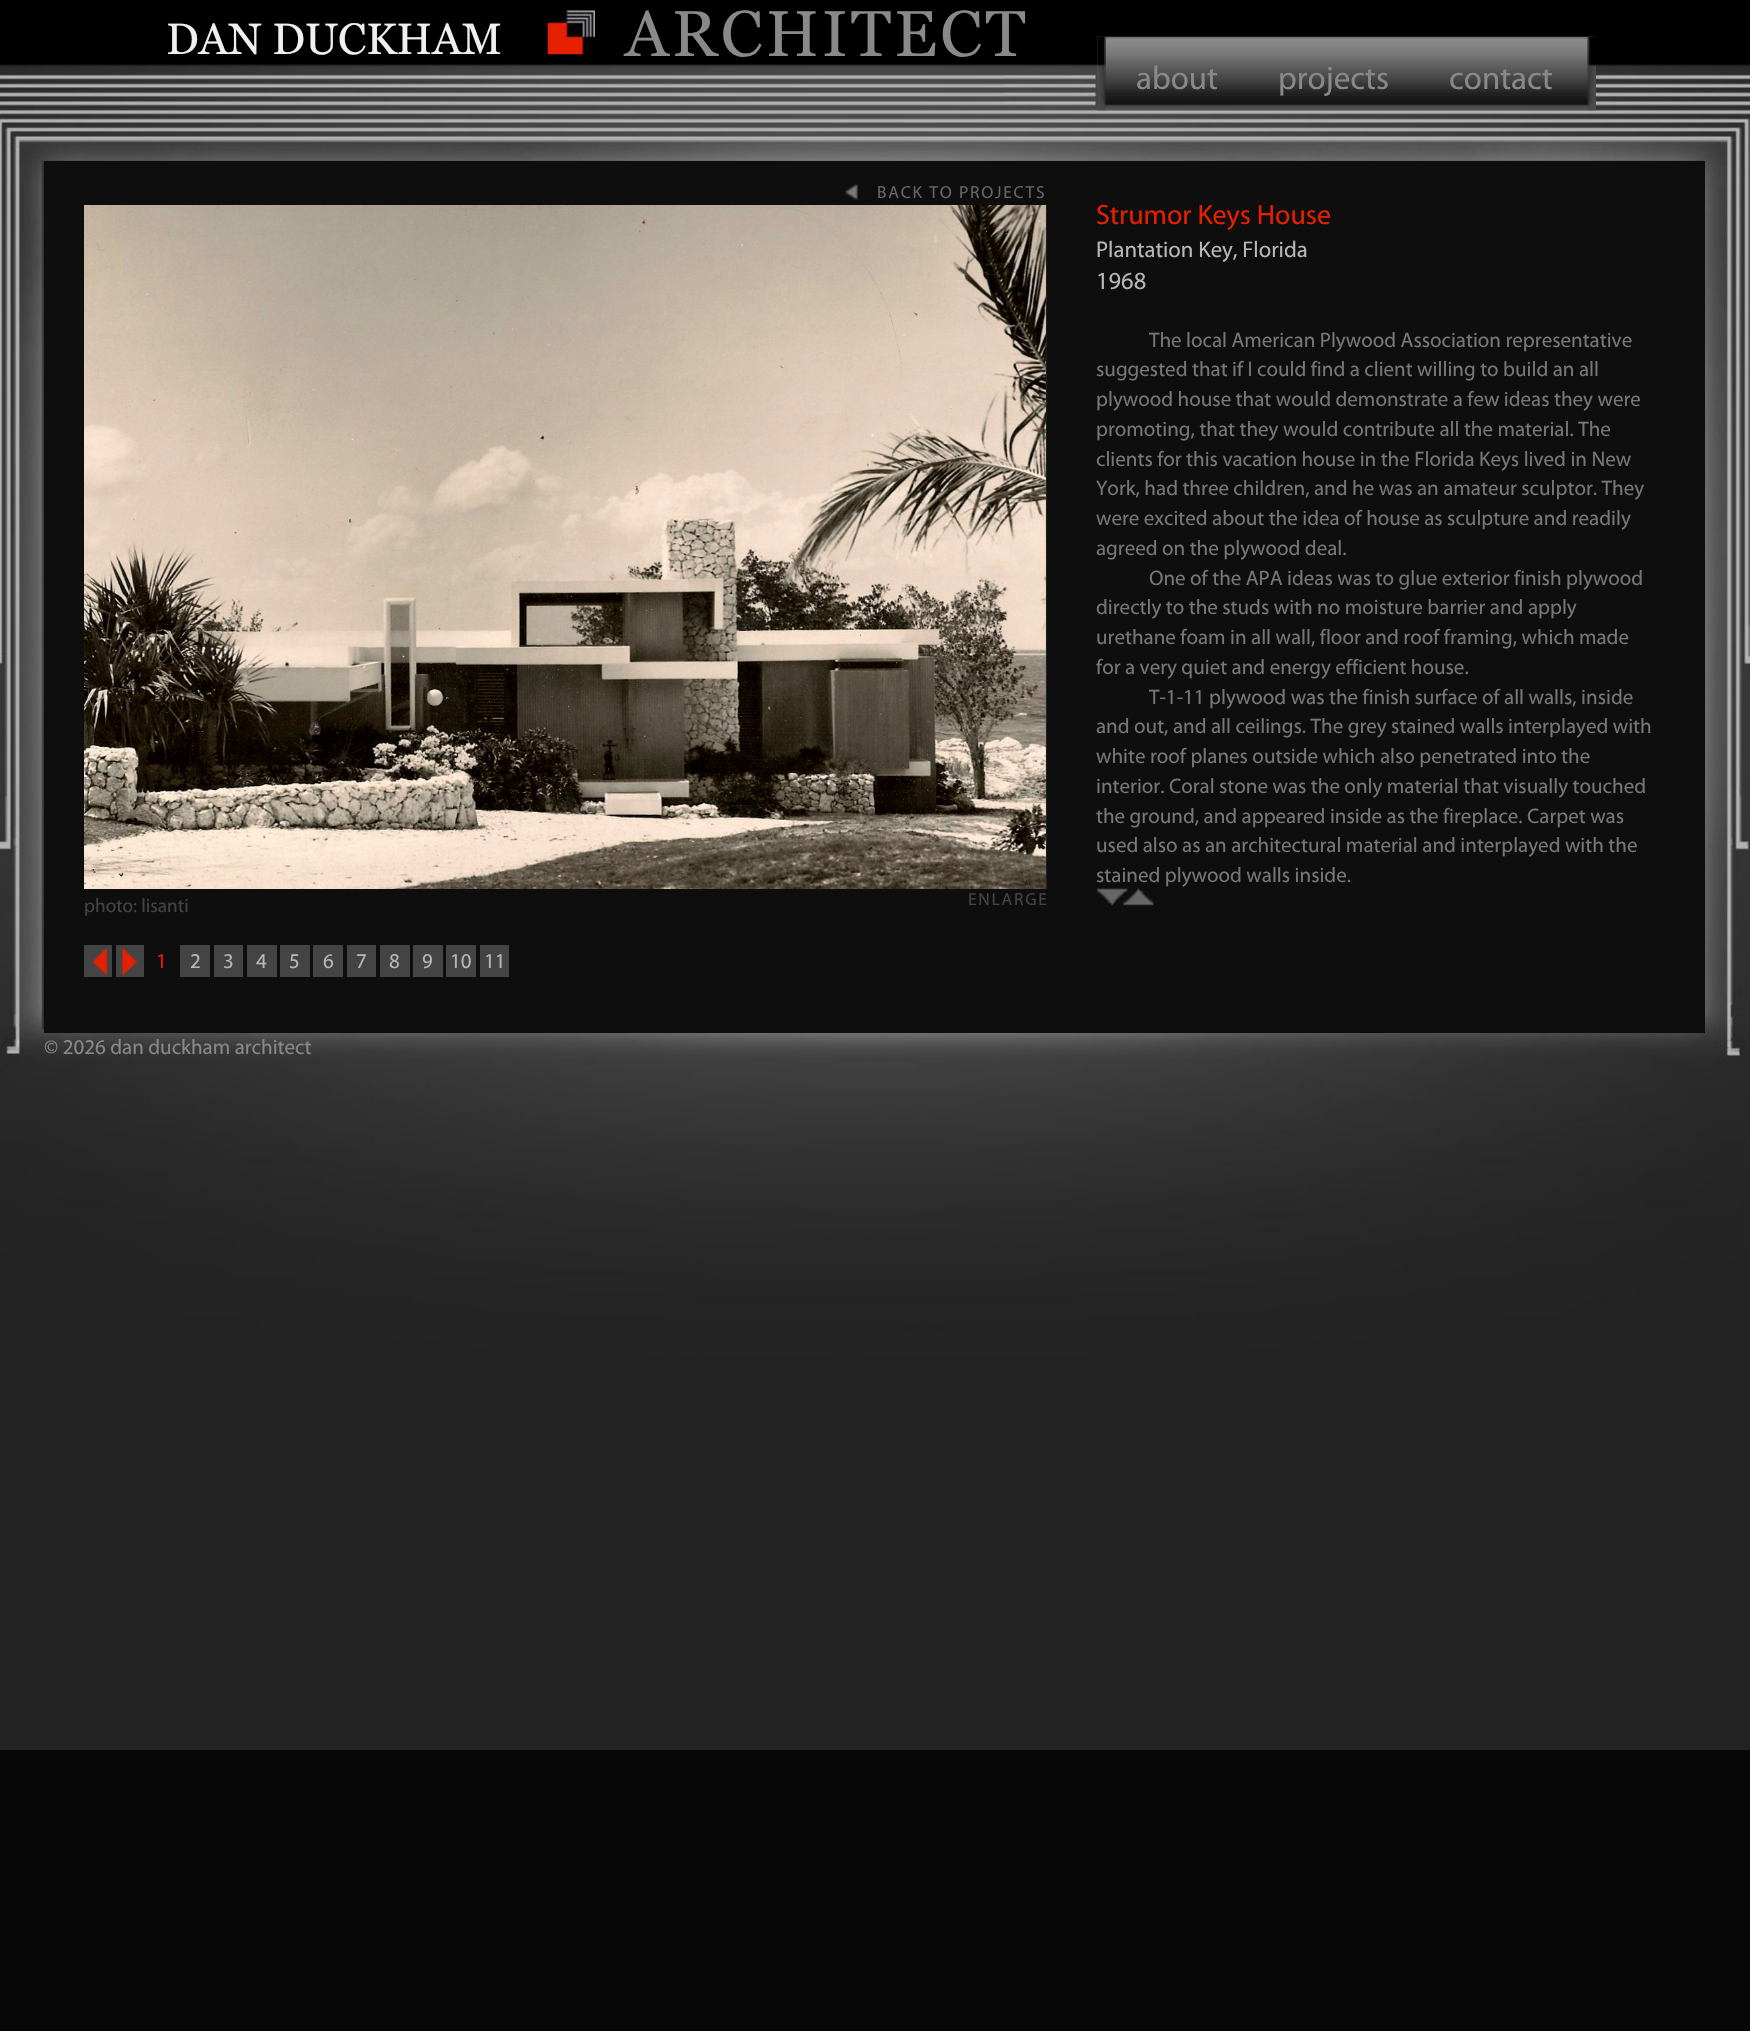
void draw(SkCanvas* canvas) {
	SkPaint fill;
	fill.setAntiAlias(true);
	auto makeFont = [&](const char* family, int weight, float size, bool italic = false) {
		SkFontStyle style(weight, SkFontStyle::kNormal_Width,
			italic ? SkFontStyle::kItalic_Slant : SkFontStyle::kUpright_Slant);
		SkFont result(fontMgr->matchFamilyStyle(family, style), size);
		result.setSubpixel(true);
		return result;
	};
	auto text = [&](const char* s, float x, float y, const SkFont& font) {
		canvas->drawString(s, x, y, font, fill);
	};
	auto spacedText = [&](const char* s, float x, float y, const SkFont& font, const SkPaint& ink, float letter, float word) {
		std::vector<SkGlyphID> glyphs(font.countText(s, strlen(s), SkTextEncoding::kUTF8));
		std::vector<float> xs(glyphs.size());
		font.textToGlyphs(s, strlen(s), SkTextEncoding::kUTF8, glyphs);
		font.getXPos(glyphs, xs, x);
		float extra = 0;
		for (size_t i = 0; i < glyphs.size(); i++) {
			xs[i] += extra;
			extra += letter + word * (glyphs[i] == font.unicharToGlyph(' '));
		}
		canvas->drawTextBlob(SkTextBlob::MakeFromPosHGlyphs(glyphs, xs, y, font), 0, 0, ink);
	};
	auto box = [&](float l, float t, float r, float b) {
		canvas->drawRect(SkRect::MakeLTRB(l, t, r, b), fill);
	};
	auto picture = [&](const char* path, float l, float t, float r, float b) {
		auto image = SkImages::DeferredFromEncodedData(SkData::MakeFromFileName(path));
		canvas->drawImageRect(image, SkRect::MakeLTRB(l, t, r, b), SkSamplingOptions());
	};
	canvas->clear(0xFF070707);
	picture("image0.png", 0, 0, 1750, 1750);
	picture("image1.png", 547, 10, 595, 55);
	picture("image2.png", 1097, 36, 1596, 111);
	picture("image3.png", 1097, 36, 1106, 111);
	picture("image4.png", 1587, 36, 1596, 111);
	fill.setColor(0xFF0E0E0E);
	box(44, 161, 1705, 1033);
	picture("image5.png", 845, 183, 858, 200);
	picture("image6.png", 1096, 888, 1128, 906);
	picture("image7.png", 1123, 888, 1154, 906);
	fill.setColor(0xFF232323);
	box(1045, 205, 1047, 889);
	picture("image8.png", 84, 205, 1046, 889);
	fill.setColor(0xFF444444);
	box(84, 945, 112, 977);
	picture("image9.png", 92, 948, 108, 976);
	box(116, 945, 144, 977);
	picture("image10.png", 122, 948, 137, 976);
	box(180, 945, 210, 977);
	box(214, 945, 243, 977);
	box(247, 945, 277, 977);
	box(280, 945, 310, 977);
	box(313, 945, 343, 977);
	box(347, 945, 376, 977);
	box(380, 945, 410, 977);
	box(413, 945, 443, 977);
	box(446, 945, 476, 977);
	box(480, 945, 509, 977);
	auto font1 = makeFont("Georgia", 400, 43.75f);
	fill.setColor(0xFFF0F0F0);
	text("DAN DUCKHAM", 166, 54, font1);
	auto font2 = makeFont("Georgia", 400, 64.75f);
	fill.setColor(0xFF898989);
	spacedText("ARCHITECT", 625, 56, font2, fill, 3.5f, 0);
	auto font3 = makeFont("Myriad", 400, 33);
	text("about", 1136, 89, font3);
	text("projects", 1278, 89, font3);
	text("contact", 1449, 89, font3);
	auto font4 = makeFont("Myriad", 400, 17.5f);
	fill.setColor(0xFF666666);
	spacedText("BACK TO PROJECTS", 877, 198, font4, fill, 1.75f, 0);
	auto font5 = makeFont("Myriad", 400, 28);
	fill.setColor(0xFFE61F00);
	text("Strumor Keys House", 1096, 224, font5);
	auto font6 = makeFont("Myriad", 400, 22.75f);
	fill.setColor(0xFFB7B7B7);
	text("Plantation Key, Florida", 1096, 257, font6);
	auto font7 = makeFont("Myriad", 400, 24.5f);
	text("1968", 1096, 289, font7);
	auto font8 = makeFont("Myriad", 400, 21);
	fill.setColor(0xFF777777);
	text("The local American Plywood Association representative", 1149, 347, font8);
	text("suggested that if I could find a client willing to build an all", 1096, 376, font8);
	text("plywood house that would demonstrate a few ideas they were", 1096, 406, font8);
	text("promoting, that they would contribute all the material. The", 1096, 436, font8);
	text("clients for this vacation house in the Florida Keys lived in New", 1096, 466, font8);
	text("York, had three children, and he was an amateur sculptor. They", 1096, 495, font8);
	text("were excited about the idea of house as sculpture and readily", 1096, 525, font8);
	text("agreed on the plywood deal.", 1096, 555, font8);
	text("One of the APA ideas was to glue exterior finish plywood", 1149, 585, font8);
	text("directly to the studs with no moisture barrier and apply", 1096, 614, font8);
	text("urethane foam in all wall, floor and roof framing, which made", 1096, 644, font8);
	text("for a very quiet and energy efficient house.", 1096, 674, font8);
	text("T-1-11 plywood was the finish surface of all walls, inside", 1149, 704, font8);
	text("and out, and all ceilings. The grey stained walls interplayed with", 1096, 733, font8);
	text("white roof planes outside which also penetrated into the", 1096, 763, font8);
	text("interior. Coral stone was the only material that visually touched", 1096, 793, font8);
	text("the ground, and appeared inside as the fireplace. Carpet was", 1096, 823, font8);
	text("used also as an architectural material and interplayed with the", 1096, 852, font8);
	text("stained plywood walls inside.", 1096, 882, font8);
	auto font9 = makeFont("Myriad", 400, 19.25f);
	fill.setColor(0xFF444444);
	text("photo: lisanti", 84, 912, font9);
	spacedText("ENLARGE", 968, 905, font4, fill, 1.75f, 0);
	fill.setColor(0xFFE61F00);
	text("1", 156, 968, font8);
	fill.setColor(0xFFB7B7B7);
	text("2", 190, 968, font8);
	text("3", 223, 968, font8);
	text("4", 256, 968, font8);
	text("5", 289, 968, font8);
	text("6", 323, 968, font8);
	text("7", 356, 968, font8);
	text("8", 389, 968, font8);
	text("9", 422, 968, font8);
	text("10", 450, 968, font8);
	text("11", 484, 968, font8);
	fill.setColor(0xFF898989);
	text("© 2026 dan duckham architect", 44, 1054, font8);
}
